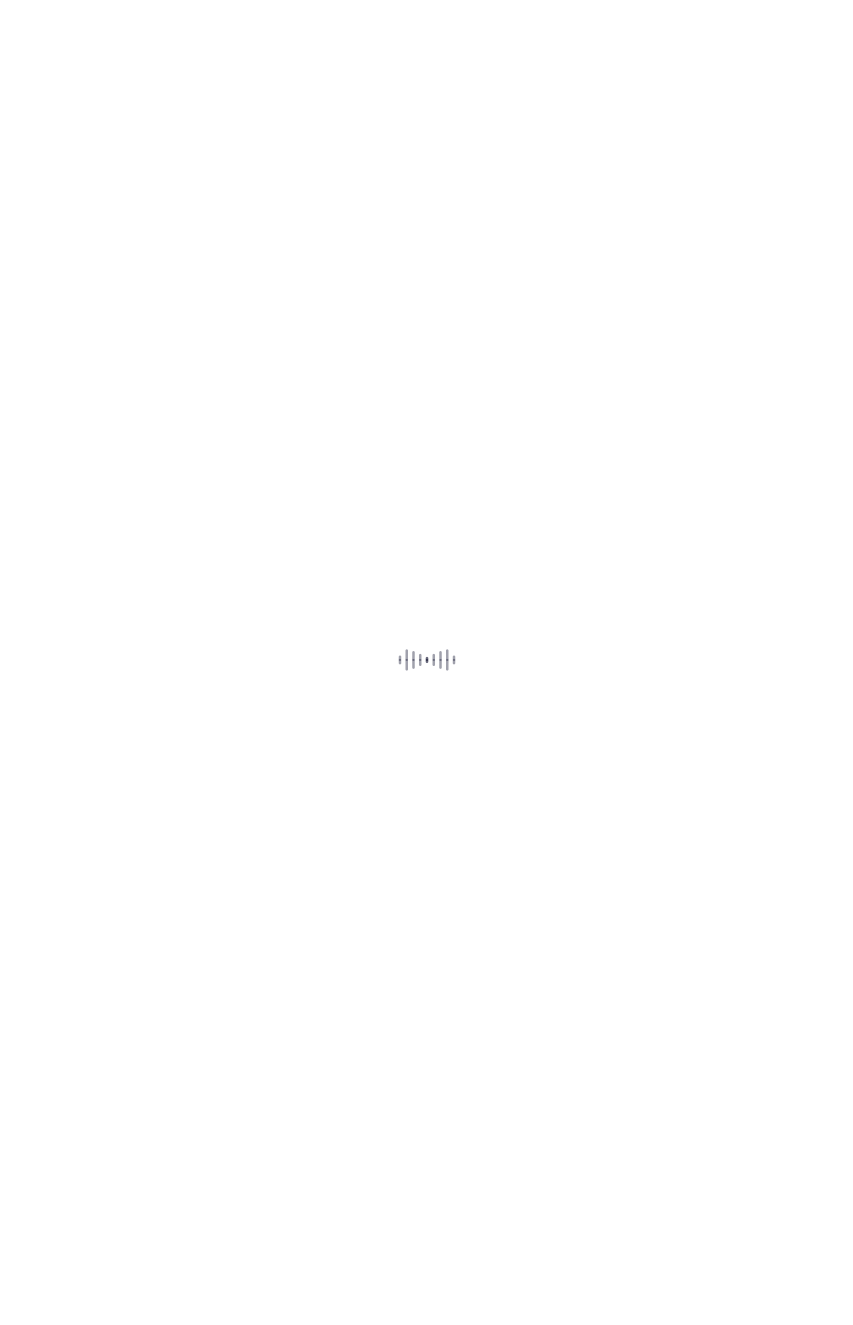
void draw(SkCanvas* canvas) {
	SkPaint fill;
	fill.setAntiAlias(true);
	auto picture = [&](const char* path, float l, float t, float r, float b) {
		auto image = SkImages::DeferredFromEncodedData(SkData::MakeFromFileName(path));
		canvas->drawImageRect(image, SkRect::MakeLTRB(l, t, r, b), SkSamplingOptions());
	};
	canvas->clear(0xFFFFFFFF);
	picture("image0.png", 398, 649, 456, 671);
}
